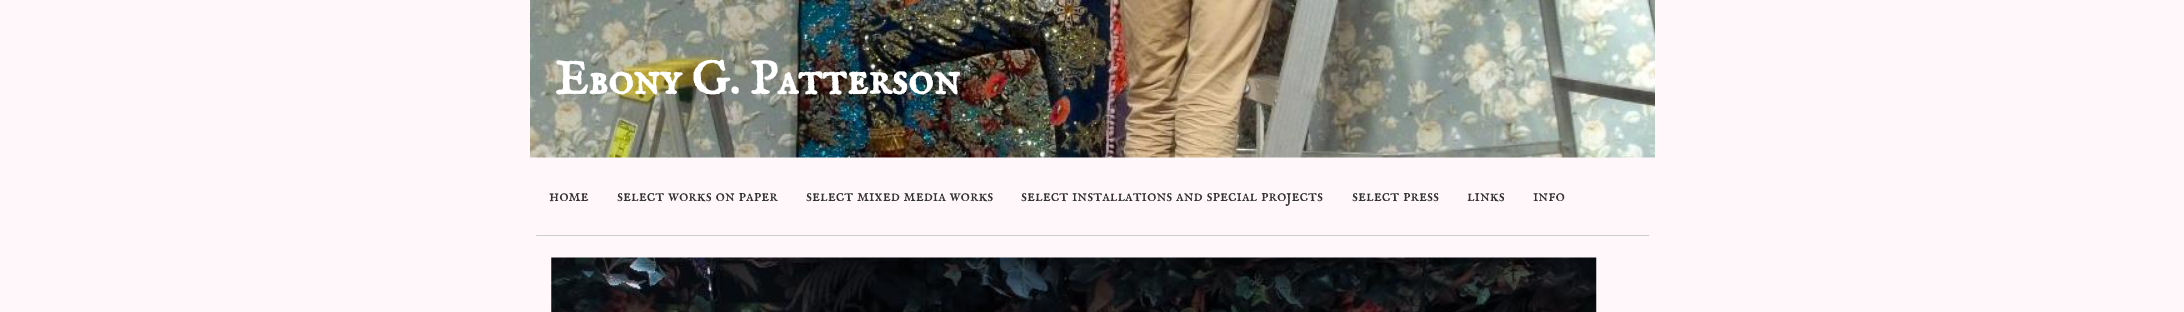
void draw(SkCanvas* canvas) {
	SkPaint fill;
	fill.setAntiAlias(true);
	auto makeFont = [&](const char* family, int weight, float size, bool italic = false) {
		SkFontStyle style(weight, SkFontStyle::kNormal_Width,
			italic ? SkFontStyle::kItalic_Slant : SkFontStyle::kUpright_Slant);
		SkFont result(fontMgr->matchFamilyStyle(family, style), size);
		result.setSubpixel(true);
		return result;
	};
	auto text = [&](const char* s, float x, float y, const SkFont& font) {
		canvas->drawString(s, x, y, font, fill);
	};
	auto box = [&](float l, float t, float r, float b) {
		canvas->drawRect(SkRect::MakeLTRB(l, t, r, b), fill);
	};
	auto picture = [&](const char* path, float l, float t, float r, float b) {
		auto image = SkImages::DeferredFromEncodedData(SkData::MakeFromFileName(path));
		canvas->drawImageRect(image, SkRect::MakeLTRB(l, t, r, b), SkSamplingOptions());
	};
	canvas->clear(0xFFFFF7FA);
	picture("image0.png", 530, 0, 1655, 158);
	fill.setColor(0xFFCCCCCC);
	box(536, 235, 1649, 236);
	picture("image1.png", 551, 257, 1597, 312);
	auto font1 = makeFont("IM FELL English SC", 700, 47.5f);
	fill.setColor(0xFFFFFFFF);
	text("Ebony G. Patterson", 555, 94, font1);
	auto font2 = makeFont("IM FELL English SC", 400, 17.5f);
	fill.setColor(0xFF333333);
	text("home", 549, 201, font2);
	text("select works on paper", 617, 201, font2);
	text("select mixed media works", 806, 201, font2);
	text("select installations and special projects", 1021, 201, font2);
	text("select press", 1352, 201, font2);
	text("links", 1467, 201, font2);
	text("info", 1533, 201, font2);
}
